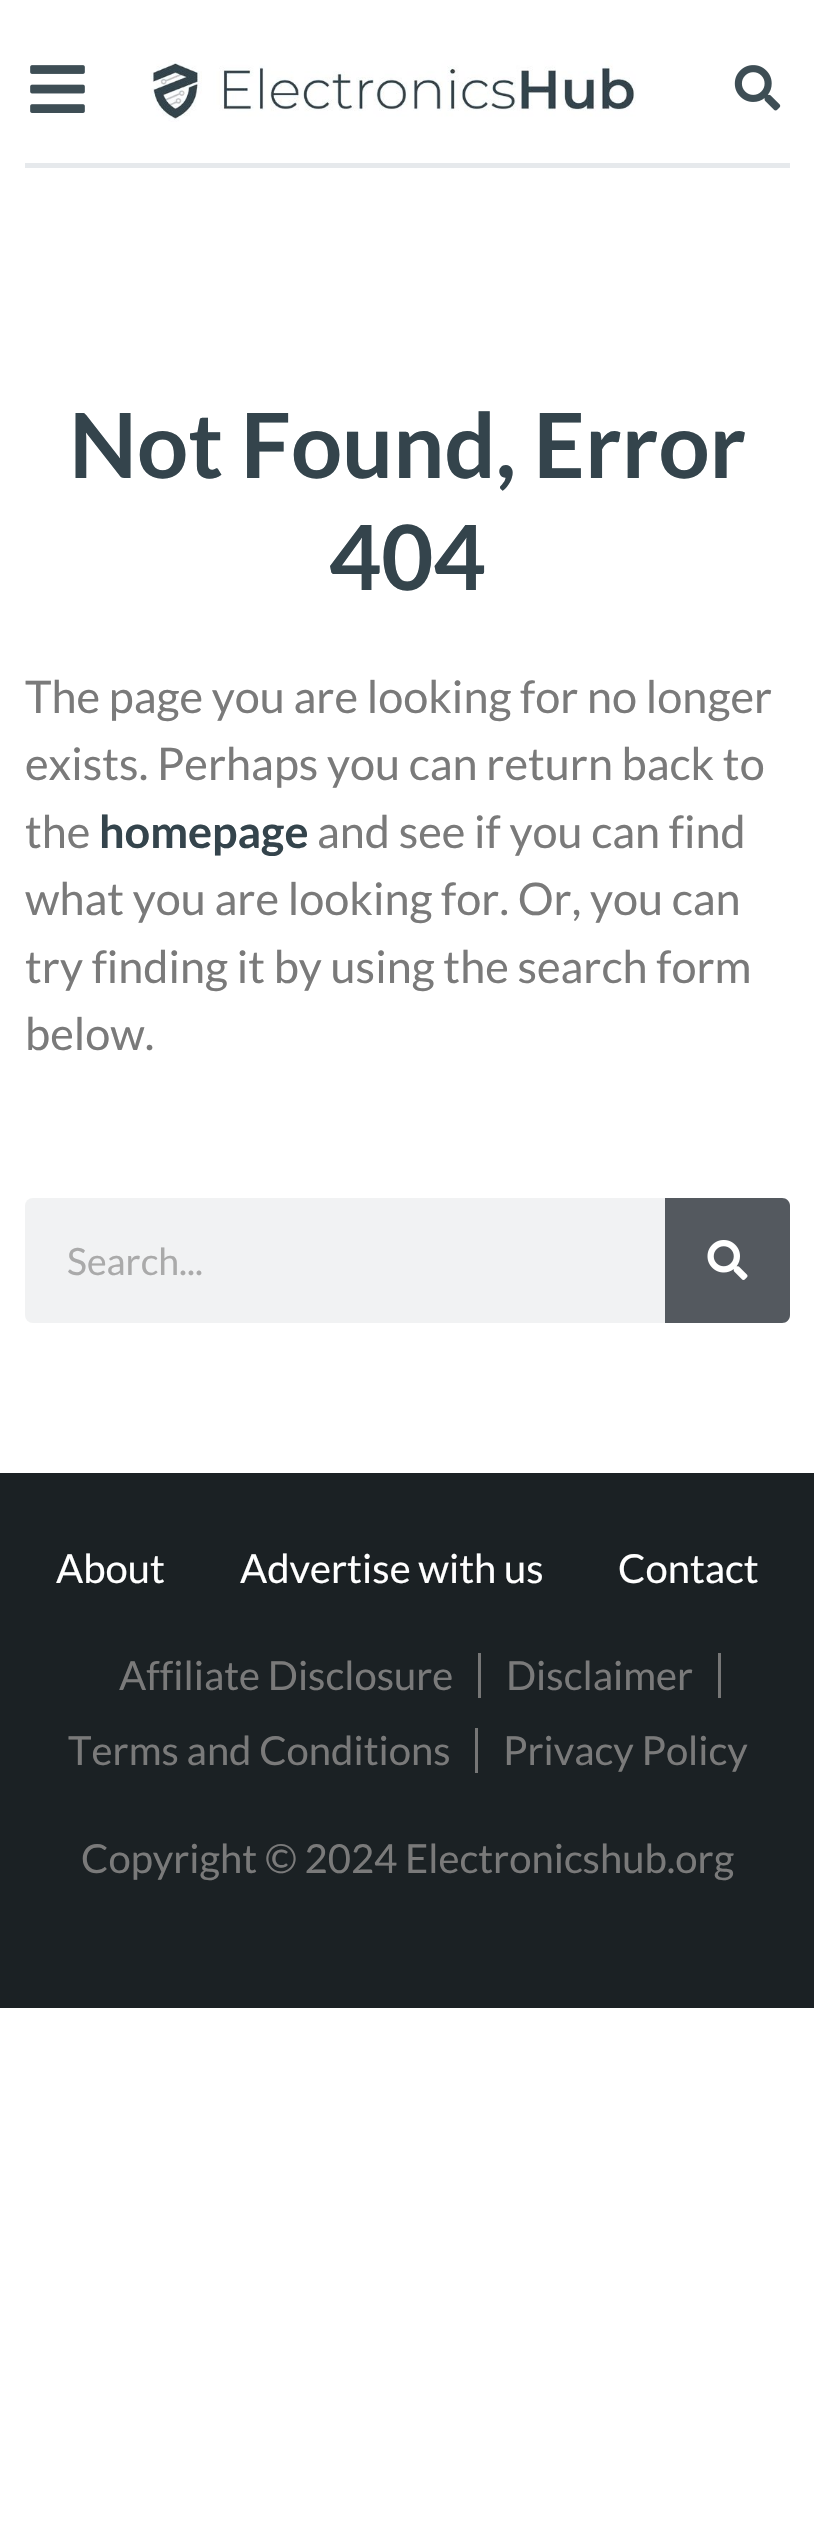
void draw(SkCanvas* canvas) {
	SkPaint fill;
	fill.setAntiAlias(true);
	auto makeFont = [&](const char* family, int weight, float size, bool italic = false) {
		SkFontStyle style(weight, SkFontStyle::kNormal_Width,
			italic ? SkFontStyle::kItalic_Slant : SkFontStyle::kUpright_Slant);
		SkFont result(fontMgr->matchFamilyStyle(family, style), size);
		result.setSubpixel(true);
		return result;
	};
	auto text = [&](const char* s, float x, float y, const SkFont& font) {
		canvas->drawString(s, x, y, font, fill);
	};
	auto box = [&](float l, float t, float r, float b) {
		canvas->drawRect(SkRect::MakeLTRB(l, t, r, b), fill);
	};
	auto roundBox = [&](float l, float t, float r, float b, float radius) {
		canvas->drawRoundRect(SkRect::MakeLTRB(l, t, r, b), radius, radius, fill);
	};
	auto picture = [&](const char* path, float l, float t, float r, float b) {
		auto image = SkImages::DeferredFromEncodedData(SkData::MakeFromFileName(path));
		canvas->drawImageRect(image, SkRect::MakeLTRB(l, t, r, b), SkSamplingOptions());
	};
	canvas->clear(0xFFFFFFFF);
	picture("image0.png", 30, 65, 85, 113);
	picture("image1.png", 150, 60, 636, 122);
	picture("image2.png", 734, 65, 781, 111);
	fill.setColor(0xFFE6E9EC);
	box(25, 163, 790, 168);
	fill.setColor(0xFFF1F2F3);
	roundBox(25, 1198, 790, 1323, 8);
	fill.setColor(0xFF54595F);
	canvas->drawPath(SkPathBuilder().moveTo(665, 1198).lineTo(782, 1198).cubicTo(786.5f, 1198, 790, 1201.5f, 790, 1206).lineTo(790, 1315).cubicTo(790, 1319.5f, 786.5f, 1323, 782, 1323).lineTo(665, 1323).close().detach(), fill);
	picture("image3.png", 707, 1240, 748, 1280);
	fill.setColor(0xFF1B2124);
	box(0, 1473, 814, 2008);
	fill.setColor(0xFF767676);
	box(478, 1653, 481, 1698);
	box(718, 1653, 721, 1698);
	box(475, 1728, 478, 1773);
	auto font1 = makeFont("Lato", 700, 90);
	fill.setColor(0xFF34444C);
	text("Not Found, Error", 69, 478, font1);
	text("404", 329, 590, font1);
	auto font2 = makeFont("Lato", 400, 45);
	fill.setColor(0xFF7A7A7A);
	text("The page you are looking for no longer", 25, 713, font2);
	text("exists. Perhaps you can return back to", 25, 780, font2);
	text("the", 25, 848, font2);
	auto font3 = makeFont("Lato", 700, 45);
	fill.setColor(0xFF34444C);
	text("homepage", 99, 848, font3);
	fill.setColor(0xFF7A7A7A);
	text("and see if you can find", 317, 848, font2);
	text("what you are looking for. Or, you can", 25, 915, font2);
	text("try finding it by using the search form", 25, 983, font2);
	text("below.", 25, 1050, font2);
	auto font4 = makeFont("Lato", 400, 37.5f);
	fill.setColor(0xFFAAAAAA);
	text("Search...", 67, 1275, font4);
	auto font5 = makeFont("Lato", 400, 40);
	fill.setColor(0xFFFFFFFF);
	text("About", 56, 1583, font5);
	text("Advertise with us", 240, 1583, font5);
	text("Contact", 618, 1583, font5);
	fill.setColor(0xFF7A7A7A);
	text("Affiliate Disclosure", 119, 1690, font5);
	text("Disclaimer", 506, 1690, font5);
	text("Terms and Conditions", 68, 1765, font5);
	text("Privacy Policy", 503, 1765, font5);
	text("Copyright © 2024 Electronicshub.org", 81, 1873, font5);
}
